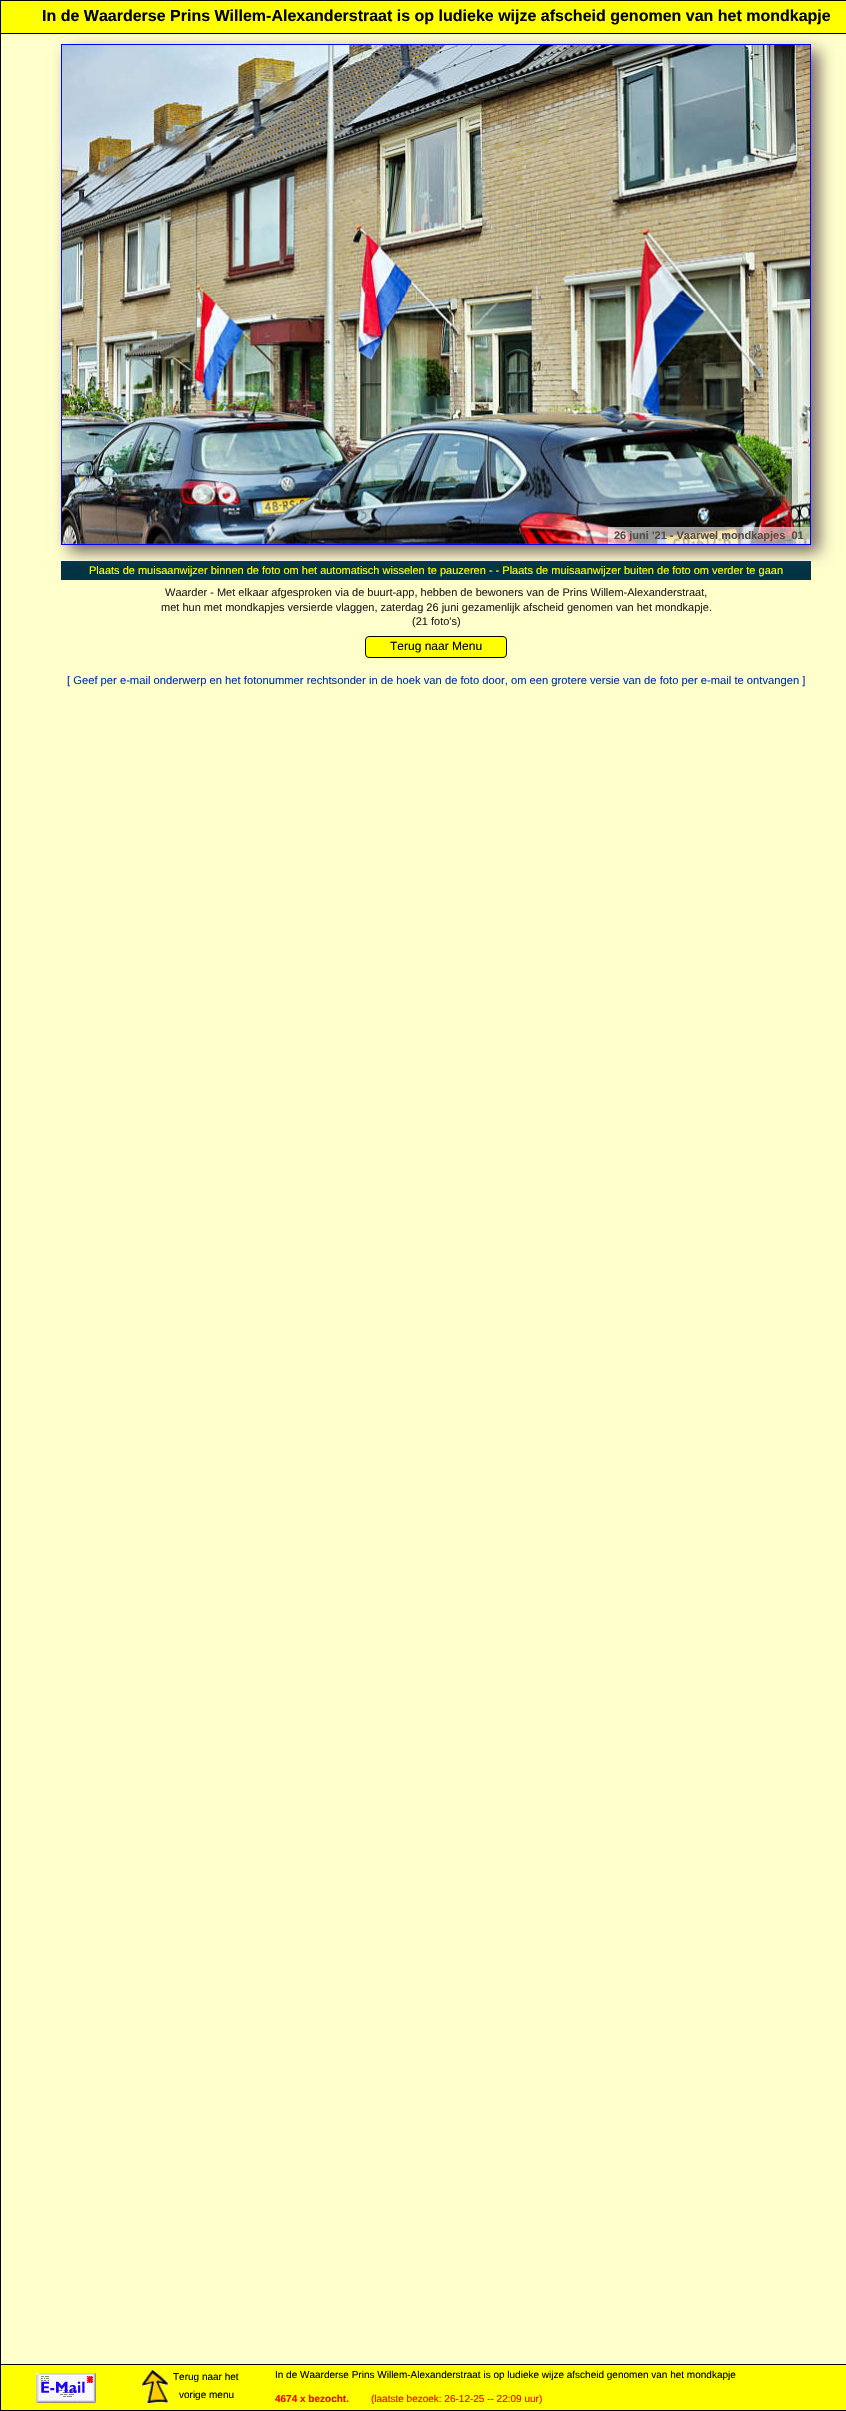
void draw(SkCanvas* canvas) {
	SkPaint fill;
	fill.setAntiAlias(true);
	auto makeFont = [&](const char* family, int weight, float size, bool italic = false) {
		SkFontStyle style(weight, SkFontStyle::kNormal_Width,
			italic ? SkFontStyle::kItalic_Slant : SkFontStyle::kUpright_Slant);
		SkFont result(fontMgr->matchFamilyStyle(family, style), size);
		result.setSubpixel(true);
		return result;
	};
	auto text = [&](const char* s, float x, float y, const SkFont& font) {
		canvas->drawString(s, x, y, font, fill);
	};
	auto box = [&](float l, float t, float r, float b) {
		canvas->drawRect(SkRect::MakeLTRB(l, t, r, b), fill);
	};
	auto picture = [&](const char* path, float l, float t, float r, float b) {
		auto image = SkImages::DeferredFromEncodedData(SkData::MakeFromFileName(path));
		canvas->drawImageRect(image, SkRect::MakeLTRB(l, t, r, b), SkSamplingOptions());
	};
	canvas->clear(0xFFFFFFCC);
	fill.setColor(0xFF000000);
	box(0, 0, 1, 2411);
	fill.setColor(0xFF003344);
	box(61, 561, 811, 580);
	fill.setColor(0xFFFFFFFF);
	box(61, 560, 811, 561);
	fill.setColor(0xFF776666);
	fill.setMaskFilter(SkMaskFilter::MakeBlur(kNormal_SkBlurStyle, 7.5f));
	canvas->drawRect(SkRect::MakeLTRB(69, 51, 819, 552), fill);
	fill.setMaskFilter(nullptr);
	fill.setColor(0xFFFFFF00);
	box(1, 1, 846, 33);
	fill.setColor(0xFF000000);
	box(1, 0, 846, 1);
	box(1, 33, 846, 34);
	fill.setStyle(SkPaint::kStroke_Style);
	fill.setStrokeWidth(1);
	fill.setColor(0xFF0000FF);
	canvas->drawRect(SkRect::MakeLTRB(61.5f, 44.5f, 810.5f, 544.5f), fill);
	picture("image0.png", 62, 45, 810, 544);
	fill.setStyle(SkPaint::kFill_Style);
	fill.setColor(0x96FFFFFF);
	box(608, 527, 810, 544);
	fill.setColor(0xFFFFFF00);
	canvas->drawRoundRect(SkRect::MakeLTRB(365.5f, 636.5f, 506.5f, 657.5f), 3.5f, 3.5f, fill);
	fill.setStyle(SkPaint::kStroke_Style);
	fill.setColor(0xFF000000);
	canvas->drawRoundRect(SkRect::MakeLTRB(365.5f, 636.5f, 506.5f, 657.5f), 3.5f, 3.5f, fill);
	fill.setStyle(SkPaint::kFill_Style);
	fill.setColor(0xFFFFFF00);
	box(1, 2365, 846, 2410);
	fill.setColor(0xFF000000);
	box(1, 2364, 846, 2365);
	box(1, 2410, 846, 2411);
	picture("image1.png", 36, 2373, 96, 2403);
	picture("image2.png", 142, 2370, 168, 2403);
	auto font1 = makeFont("Liberation Sans", 700, 16);
	text("In de Waarderse Prins Willem-Alexanderstraat is op ludieke wijze afscheid genomen van het mondkapje", 42, 21, font1);
	auto font2 = makeFont("Liberation Sans", 700, 11);
	fill.setColor(0xFF544C46);
	text("26 juni '21 - Vaarwel mondkapjes_01", 614, 539, font2);
	auto font3 = makeFont("Liberation Sans", 400, 11);
	fill.setColor(0xFFFFFF00);
	text("Plaats de muisaanwijzer binnen de foto om het automatisch wisselen te pauzeren - - Plaats de muisaanwijzer buiten de foto om verder te gaan", 89, 574, font3);
	fill.setColor(0xFF222222);
	text("Waarder - Met elkaar afgesproken via de buurt-app, hebben de bewoners van de Prins Willem-Alexanderstraat,", 165, 596, font3);
	text("met hun met mondkapjes versierde vlaggen, zaterdag 26 juni gezamenlijk afscheid genomen van het mondkapje.", 161, 611, font3);
	text("(21 foto's)", 412, 625, font3);
	auto font4 = makeFont("Liberation Sans", 400, 12);
	fill.setColor(0xFF000000);
	text("Terug naar Menu", 390, 650, font4);
	auto font5 = makeFont("Liberation Sans", 400, 11.2f);
	fill.setColor(0xFF0033AA);
	text("[ Geef per e-mail onderwerp en het fotonummer rechtsonder in de hoek van de foto door, om een grotere versie van de foto per e-mail te ontvangen ]", 67, 684, font5);
	auto font6 = makeFont("Liberation Sans", 400, 10);
	fill.setColor(0xFF000000);
	text("Terug naar het", 173, 2380, font6);
	text("vorige menu", 179, 2398, font6);
	text("In de Waarderse Prins Willem-Alexanderstraat is op ludieke wijze afscheid genomen van het mondkapje", 275, 2378, font6);
	auto font7 = makeFont("Liberation Sans", 700, 10);
	fill.setColor(0xFFFF0000);
	text("4674 x bezocht.", 275, 2402, font7);
	text("(laatste bezoek: 26-12-25 -- 22:09 uur)", 371, 2402, font6);
}
